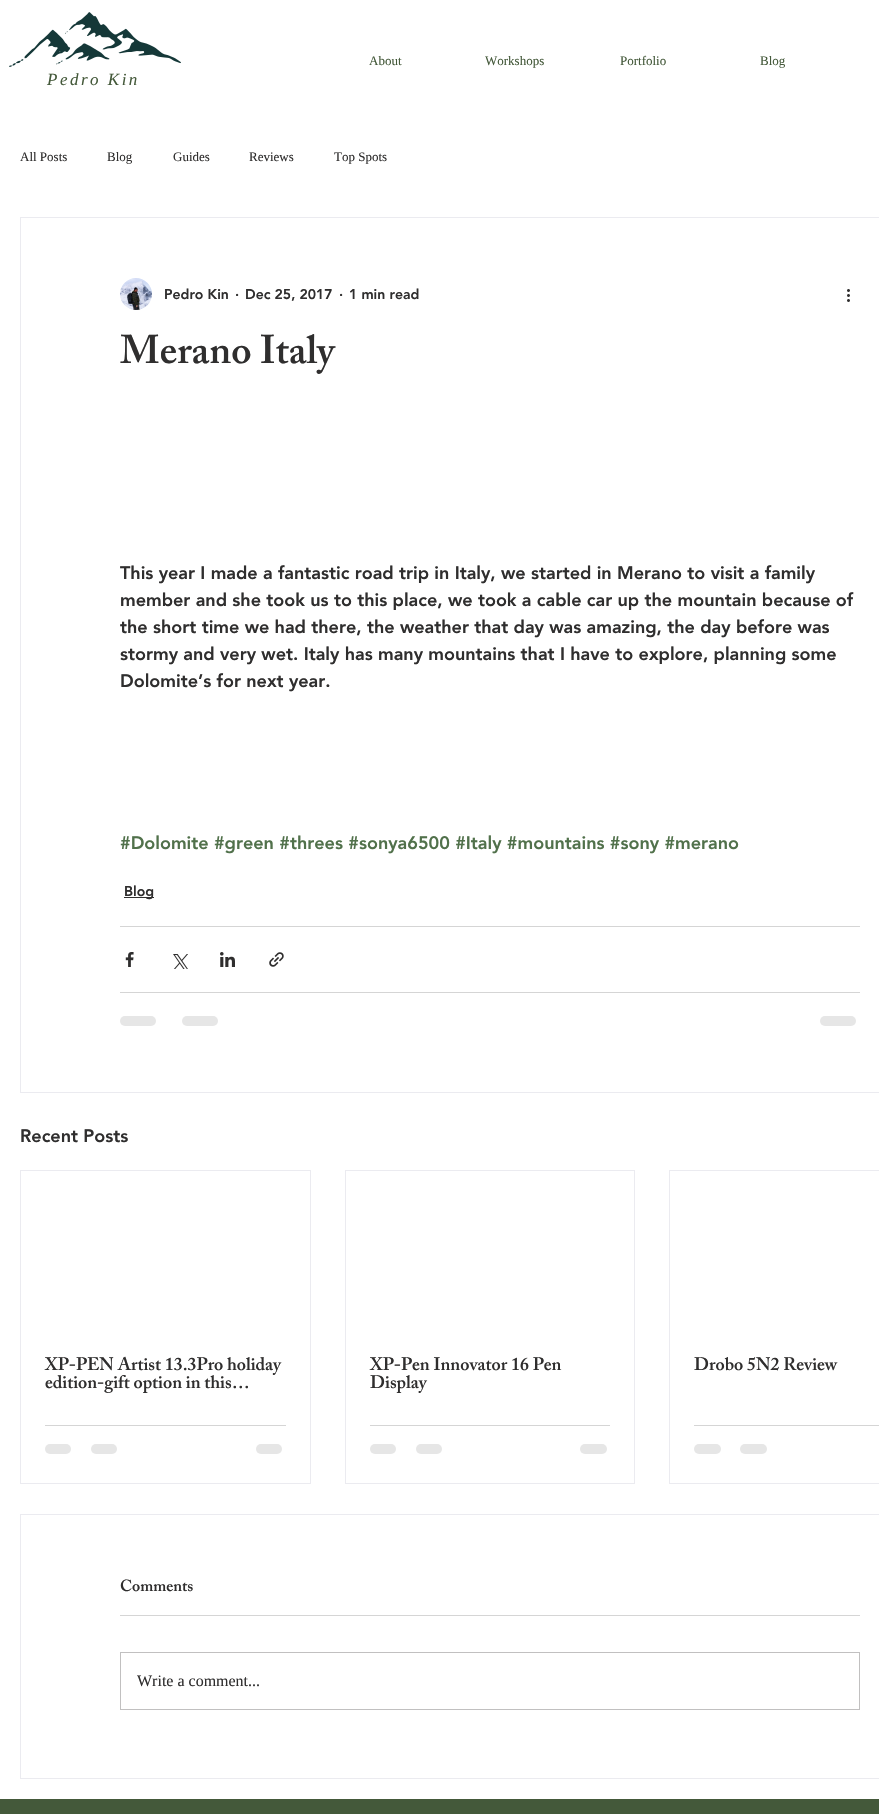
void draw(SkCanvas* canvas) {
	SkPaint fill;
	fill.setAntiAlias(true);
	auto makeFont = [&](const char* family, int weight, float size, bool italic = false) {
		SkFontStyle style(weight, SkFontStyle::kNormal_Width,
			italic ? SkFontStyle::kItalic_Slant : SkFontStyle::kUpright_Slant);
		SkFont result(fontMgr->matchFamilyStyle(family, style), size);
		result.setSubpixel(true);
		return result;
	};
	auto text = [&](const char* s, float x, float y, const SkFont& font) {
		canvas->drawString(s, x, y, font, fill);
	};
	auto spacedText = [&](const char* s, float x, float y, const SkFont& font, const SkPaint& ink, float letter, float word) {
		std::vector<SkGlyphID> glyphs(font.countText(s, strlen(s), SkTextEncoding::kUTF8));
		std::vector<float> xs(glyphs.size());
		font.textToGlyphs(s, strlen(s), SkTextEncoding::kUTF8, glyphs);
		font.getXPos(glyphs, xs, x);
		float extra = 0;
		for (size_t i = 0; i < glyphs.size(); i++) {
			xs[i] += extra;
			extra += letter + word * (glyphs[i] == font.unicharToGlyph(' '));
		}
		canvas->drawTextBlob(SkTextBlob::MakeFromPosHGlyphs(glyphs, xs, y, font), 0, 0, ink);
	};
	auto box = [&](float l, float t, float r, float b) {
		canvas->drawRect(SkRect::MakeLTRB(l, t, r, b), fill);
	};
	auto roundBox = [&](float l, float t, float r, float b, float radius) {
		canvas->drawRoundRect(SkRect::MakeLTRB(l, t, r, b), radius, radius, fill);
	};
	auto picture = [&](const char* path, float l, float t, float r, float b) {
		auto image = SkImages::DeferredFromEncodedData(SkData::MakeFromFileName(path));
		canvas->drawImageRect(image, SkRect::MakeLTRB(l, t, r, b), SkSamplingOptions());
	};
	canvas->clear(0xFFFFFFFF);
	picture("image0.png", 9, 12, 181, 67);
	fill.setStyle(SkPaint::kStroke_Style);
	fill.setStrokeWidth(1);
	fill.setColor(0xFFEBEBF0);
	canvas->drawRect(SkRect::MakeLTRB(20.5f, 217.5f, 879.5f, 1092.5f), fill);
	picture("image1.png", 120, 278, 152, 310);
	picture("image2.png", 847, 289, 850, 302);
	fill.setStyle(SkPaint::kFill_Style);
	fill.setColor(0xFF2F2E2E);
	box(124, 897, 154, 898);
	fill.setColor(0xFFD5D5D5);
	box(120, 926, 860, 927);
	picture("image3.png", 125, 952, 134, 967);
	picture("image4.png", 173, 954, 188, 969);
	picture("image5.png", 220, 952, 235, 967);
	picture("image6.png", 269, 952, 284, 967);
	box(120, 992, 860, 993);
	fill.setColor(0xFFE6E6E6);
	roundBox(120, 1016, 156, 1026, 5);
	roundBox(182, 1016, 218, 1026, 5);
	roundBox(820, 1016, 856, 1026, 5);
	fill.setStyle(SkPaint::kStroke_Style);
	fill.setColor(0xFFEBEBF0);
	canvas->drawRect(SkRect::MakeLTRB(20.5f, 1170.5f, 310.5f, 1483.5f), fill);
	fill.setStyle(SkPaint::kFill_Style);
	fill.setColor(0xFFD5D5D5);
	box(45, 1425, 286, 1426);
	fill.setColor(0xFFE6E6E6);
	roundBox(45, 1444, 71, 1454, 5);
	roundBox(91, 1444, 117, 1454, 5);
	roundBox(256, 1444, 282, 1454, 5);
	fill.setStyle(SkPaint::kStroke_Style);
	fill.setColor(0xFFEBEBF0);
	canvas->drawRect(SkRect::MakeLTRB(345.5f, 1170.5f, 634.5f, 1483.5f), fill);
	fill.setStyle(SkPaint::kFill_Style);
	fill.setColor(0xFFD5D5D5);
	box(370, 1425, 610, 1426);
	fill.setColor(0xFFE6E6E6);
	roundBox(370, 1444, 396, 1454, 5);
	roundBox(416, 1444, 442, 1454, 5);
	roundBox(580, 1444, 607, 1454, 5);
	fill.setStyle(SkPaint::kStroke_Style);
	fill.setColor(0xFFEBEBF0);
	canvas->drawRect(SkRect::MakeLTRB(669.5f, 1170.5f, 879.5f, 1483.5f), fill);
	fill.setStyle(SkPaint::kFill_Style);
	fill.setColor(0xFFD5D5D5);
	box(694, 1425, 879, 1426);
	fill.setColor(0xFFE6E6E6);
	roundBox(694, 1444, 721, 1454, 5);
	roundBox(740, 1444, 767, 1454, 5);
	fill.setStyle(SkPaint::kStroke_Style);
	fill.setColor(0xFFEBEBF0);
	canvas->drawRect(SkRect::MakeLTRB(20.5f, 1514.5f, 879.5f, 1778.5f), fill);
	fill.setStyle(SkPaint::kFill_Style);
	fill.setColor(0xFFD5D5D5);
	box(120, 1615, 860, 1616);
	fill.setStyle(SkPaint::kStroke_Style);
	fill.setColor(0xFFC1C0C0);
	canvas->drawRect(SkRect::MakeLTRB(120.5f, 1652.5f, 859.5f, 1709.5f), fill);
	fill.setStyle(SkPaint::kFill_Style);
	fill.setColor(0xFF44593A);
	box(0, 1799, 879, 1814);
	auto font1 = makeFont("Liberation Serif", 400, 13);
	text("About", 369, 65, font1);
	text("Workshops", 485, 65, font1);
	text("Portfolio", 620, 65, font1);
	text("Blog", 760, 65, font1);
	auto font2 = makeFont("Liberation Serif", 400, 17, true);
	spacedText("Pedro Kin", 47, 85, font2, fill, 2.5f, 0);
	fill.setColor(0xFF2F2E2E);
	text("All Posts", 20, 161, font1);
	text("Blog", 107, 161, font1);
	text("Guides", 173, 161, font1);
	text("Reviews", 249, 161, font1);
	text("Top Spots", 334, 161, font1);
	auto font3 = makeFont("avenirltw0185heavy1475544", 900, 14);
	text("Pedro Kin", 164, 299, font3);
	text("·", 235, 299, font3);
	text("Dec 25, 2017", 245, 299, font3);
	text("·", 339, 299, font3);
	text("1 min read", 349, 299, font3);
	auto font4 = makeFont("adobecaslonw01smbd", 600, 40);
	text("Merano Italy", 120, 363, font4);
	auto font5 = makeFont("avenirltw0185heavy1475544", 900, 18);
	text("This year I made a fantastic road trip in Italy, we started in Merano to visit a family", 120, 579, font5);
	text("member and she took us to this place, we took a cable car up the mountain because of", 120, 606, font5);
	text("the short time we had there, the weather that day was amazing, the day before was", 120, 633, font5);
	text("stormy and very wet. Italy has many mountains that I have to explore, planning some", 120, 660, font5);
	text("Dolomite’s for next year.", 120, 687, font5);
	fill.setColor(0xFF51714B);
	text("#Dolomite #green #threes #sonya6500 #Italy #mountains #sony #merano", 120, 849, font5);
	fill.setColor(0xFF2F2E2E);
	text("Blog", 124, 896, font3);
	text("Recent Posts", 20, 1142, font5);
	auto font6 = makeFont("adobecaslonw01smbd", 600, 18);
	text("XP-PEN Artist 13.3Pro holiday", 45, 1370, font6);
	text("edition-gift option in this…", 45, 1388, font6);
	text("XP-Pen Innovator 16 Pen", 370, 1370, font6);
	text("Display", 370, 1388, font6);
	text("Drobo 5N2 Review", 694, 1370, font6);
	auto font7 = makeFont("adobecaslonw01smbd", 600, 16);
	text("Comments", 120, 1591, font7);
	auto font8 = makeFont("Liberation Serif", 400, 16);
	text("Write a comment...", 137, 1686, font8);
}
